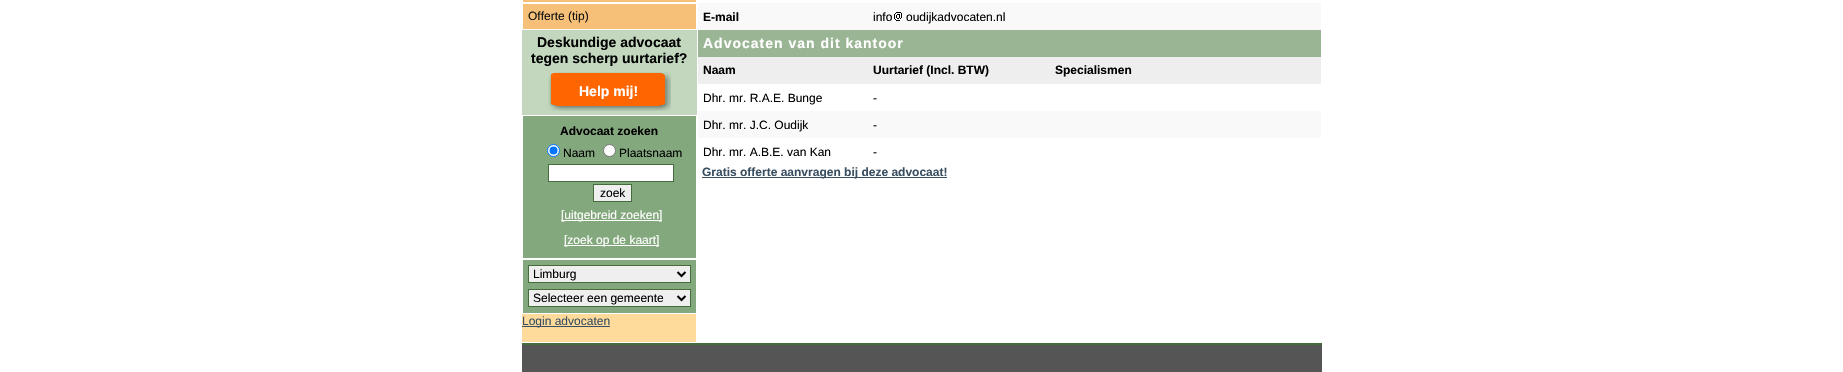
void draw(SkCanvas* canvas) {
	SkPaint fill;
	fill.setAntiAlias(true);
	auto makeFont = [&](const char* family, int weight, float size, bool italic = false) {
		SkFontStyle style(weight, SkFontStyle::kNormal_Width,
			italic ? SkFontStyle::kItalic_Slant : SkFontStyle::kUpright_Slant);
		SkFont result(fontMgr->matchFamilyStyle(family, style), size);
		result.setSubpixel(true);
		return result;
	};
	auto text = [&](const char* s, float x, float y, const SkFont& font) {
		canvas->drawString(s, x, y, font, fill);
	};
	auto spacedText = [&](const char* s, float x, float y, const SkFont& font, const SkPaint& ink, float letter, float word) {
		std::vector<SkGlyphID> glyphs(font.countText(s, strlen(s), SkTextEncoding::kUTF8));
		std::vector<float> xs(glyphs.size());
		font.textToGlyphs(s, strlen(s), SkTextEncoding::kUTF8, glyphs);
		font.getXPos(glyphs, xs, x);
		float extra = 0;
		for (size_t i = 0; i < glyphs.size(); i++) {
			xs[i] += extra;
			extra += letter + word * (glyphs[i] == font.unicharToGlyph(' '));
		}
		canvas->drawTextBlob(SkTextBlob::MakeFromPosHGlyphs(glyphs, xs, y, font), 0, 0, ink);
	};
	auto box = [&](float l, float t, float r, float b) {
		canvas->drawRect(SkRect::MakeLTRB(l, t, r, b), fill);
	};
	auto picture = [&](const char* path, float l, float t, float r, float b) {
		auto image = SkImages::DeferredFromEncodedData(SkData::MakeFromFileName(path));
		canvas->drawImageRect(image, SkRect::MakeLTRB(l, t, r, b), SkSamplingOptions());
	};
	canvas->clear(0xFFFFFFFF);
	fill.setColor(0xFFFEDB9B);
	box(522, 314, 696, 342);
	fill.setColor(0xFFF6C078);
	canvas->drawRect(SkRect::MakeLTRB(522.5f, -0.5f, 696.5f, 2.5f), fill);
	fill.setStyle(SkPaint::kStroke_Style);
	fill.setStrokeWidth(1);
	fill.setColor(0xFFFFFFFF);
	canvas->drawRect(SkRect::MakeLTRB(522.5f, -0.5f, 696.5f, 2.5f), fill);
	fill.setStyle(SkPaint::kFill_Style);
	fill.setColor(0xFFF6C078);
	box(523, 4, 696, 29);
	fill.setColor(0xFFC2D7BE);
	box(522, 30, 697, 115);
	picture("image0.png", 548, 72, 671, 111);
	fill.setColor(0xFF84A87D);
	box(523, 116, 696, 258);
	fill.setColor(0xFFFFFFFF);
	canvas->drawCircle(553.5f, 150.5f, 6, fill);
	fill.setStyle(SkPaint::kStroke_Style);
	fill.setColor(0xFF0075FF);
	canvas->drawCircle(553.5f, 150.5f, 6, fill);
	fill.setStyle(SkPaint::kFill_Style);
	canvas->drawCircle(553.5f, 150.5f, 4, fill);
	fill.setColor(0xFFFFFFFF);
	canvas->drawCircle(609.5f, 150.5f, 6, fill);
	fill.setStyle(SkPaint::kStroke_Style);
	fill.setColor(0xFF767676);
	canvas->drawCircle(609.5f, 150.5f, 6, fill);
	fill.setStyle(SkPaint::kFill_Style);
	fill.setColor(0xFFFFFFFF);
	canvas->drawRect(SkRect::MakeLTRB(548.5f, 164.5f, 673.5f, 181.5f), fill);
	fill.setStyle(SkPaint::kStroke_Style);
	fill.setColor(0xFF456C3D);
	canvas->drawRect(SkRect::MakeLTRB(548.5f, 164.5f, 673.5f, 181.5f), fill);
	fill.setStyle(SkPaint::kFill_Style);
	fill.setColor(0xFFEFEFEF);
	canvas->drawRect(SkRect::MakeLTRB(593.5f, 184.5f, 631.5f, 201.5f), fill);
	fill.setStyle(SkPaint::kStroke_Style);
	fill.setColor(0xFF456C3D);
	canvas->drawRect(SkRect::MakeLTRB(593.5f, 184.5f, 631.5f, 201.5f), fill);
	fill.setStyle(SkPaint::kFill_Style);
	fill.setColor(0xFFFFFFFF);
	box(561, 220, 662, 221);
	box(564, 245, 659, 246);
	fill.setColor(0xFF84A87D);
	box(523, 260, 696, 313);
	fill.setColor(0xFFEFEFEF);
	canvas->drawRect(SkRect::MakeLTRB(528.5f, 265.5f, 690.5f, 282.5f), fill);
	fill.setStyle(SkPaint::kStroke_Style);
	fill.setColor(0xFF456C3D);
	canvas->drawRect(SkRect::MakeLTRB(528.5f, 265.5f, 690.5f, 282.5f), fill);
	fill.setStrokeWidth(2);
	fill.setColor(0xFF000000);
	canvas->drawPath(SkPathBuilder().moveTo(677.5f, 272).lineTo(681.5f, 276).lineTo(685.5f, 272).detach(), fill);
	fill.setStyle(SkPaint::kFill_Style);
	fill.setColor(0xFFEFEFEF);
	canvas->drawRect(SkRect::MakeLTRB(528.5f, 289.5f, 690.5f, 306.5f), fill);
	fill.setStyle(SkPaint::kStroke_Style);
	fill.setStrokeWidth(1);
	fill.setColor(0xFF456C3D);
	canvas->drawRect(SkRect::MakeLTRB(528.5f, 289.5f, 690.5f, 306.5f), fill);
	fill.setStrokeWidth(2);
	fill.setColor(0xFF000000);
	canvas->drawPath(SkPathBuilder().moveTo(677.5f, 296).lineTo(681.5f, 300).lineTo(685.5f, 296).detach(), fill);
	fill.setStyle(SkPaint::kFill_Style);
	fill.setColor(0xFF394F61);
	box(522, 326, 610, 327);
	fill.setColor(0xFFF9F9F9);
	box(698, 3, 1321, 30);
	picture("image1.png", 894, 12, 902, 21);
	fill.setColor(0xFF9AB594);
	box(698, 30, 1321, 57);
	fill.setColor(0xFFEEEEEE);
	box(698, 57, 1321, 84);
	fill.setColor(0xFFF9F9F9);
	box(698, 111, 1321, 138);
	fill.setColor(0xFF394F61);
	box(702, 177, 947, 178);
	fill.setColor(0xFF555555);
	box(522, 345, 1322, 372);
	fill.setColor(0xFF456C3D);
	box(522, 343, 1322, 345);
	auto font1 = makeFont("Liberation Sans", 400, 12);
	fill.setColor(0xFF111111);
	text("Offerte (tip)", 528, 20, font1);
	auto font2 = makeFont("Liberation Sans", 700, 14);
	fill.setColor(0xFF000000);
	text("Deskundige advocaat", 537, 47, font2);
	text("tegen scherp uurtarief?", 531, 63, font2);
	fill.setColor(0xFFFFFFFF);
	text("Help mij!", 579, 96, font2);
	auto font3 = makeFont("Liberation Sans", 700, 12);
	fill.setColor(0xFF000000);
	text("Advocaat zoeken", 560, 135, font3);
	text("Naam", 563, 157, font1);
	text("Plaatsnaam", 619, 157, font1);
	text("zoek", 600, 197, font1);
	fill.setColor(0xFFFFFFFF);
	text("[uitgebreid zoeken]", 561, 219, font1);
	text("[zoek op de kaart]", 564, 244, font1);
	fill.setColor(0xFF000000);
	text("Limburg", 533, 278, font1);
	text("Selecteer een gemeente", 533, 302, font1);
	fill.setColor(0xFF394F61);
	text("Login advocaten", 522, 325, font1);
	fill.setColor(0xFF000000);
	text("E-mail", 703, 21, font3);
	text("info", 873, 21, font1);
	text("oudijkadvocaten.nl", 906, 21, font1);
	fill.setColor(0xFFFFFFFF);
	spacedText("Advocaten van dit kantoor", 703, 48, font2, fill, 1, 0);
	fill.setColor(0xFF000000);
	text("Naam", 703, 74, font3);
	text("Uurtarief (Incl. BTW)", 873, 74, font3);
	text("Specialismen", 1055, 74, font3);
	text("Dhr. mr. R.A.E. Bunge", 703, 102, font1);
	text("-", 873, 102, font1);
	text("Dhr. mr. J.C. Oudijk", 703, 129, font1);
	text("-", 873, 129, font1);
	text("Dhr. mr. A.B.E. van Kan", 703, 156, font1);
	text("-", 873, 156, font1);
	fill.setColor(0xFF394F61);
	text("Gratis offerte aanvragen bij deze advocaat!", 702, 176, font3);
}
